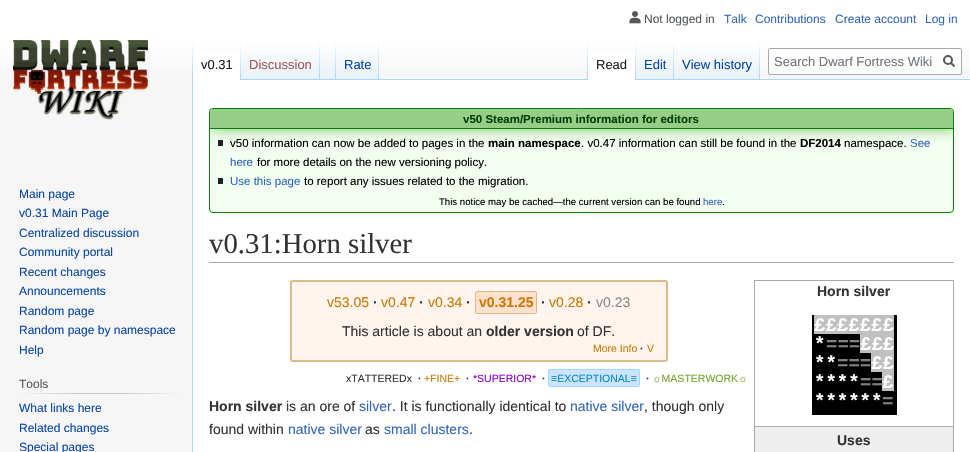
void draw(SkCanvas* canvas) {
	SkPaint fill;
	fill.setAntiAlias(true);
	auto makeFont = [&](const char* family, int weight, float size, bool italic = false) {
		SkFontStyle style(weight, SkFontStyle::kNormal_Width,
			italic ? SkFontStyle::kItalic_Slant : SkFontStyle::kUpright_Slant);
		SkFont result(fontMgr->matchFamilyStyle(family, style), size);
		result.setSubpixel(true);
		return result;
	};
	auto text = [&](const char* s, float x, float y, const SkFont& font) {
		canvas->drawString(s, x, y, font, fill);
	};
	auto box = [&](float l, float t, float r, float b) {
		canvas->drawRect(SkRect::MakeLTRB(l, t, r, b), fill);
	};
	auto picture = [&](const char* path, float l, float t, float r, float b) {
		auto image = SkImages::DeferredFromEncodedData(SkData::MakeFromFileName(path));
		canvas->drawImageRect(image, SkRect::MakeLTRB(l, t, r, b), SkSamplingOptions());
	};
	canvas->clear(0xFFF6F6F6);
	{
		const SkColor colors[] = {0xFFFFFFFF, 0xFFF6F6F6};
		const float stops[] = {0.5f, 1};
		const SkPoint ends[] = {{485, 0}, {485, 80}};
		fill.setShader(SkGradientShader::MakeLinear(ends, colors, stops, 2, SkTileMode::kClamp));
		fill.setAlpha(255);
	}
	box(0, 0, 970, 69);
	picture("image0.png", 629, 11, 641, 24);
	fill.setShader(nullptr);
	fill.setColor(0xFFA7D7F9);
	box(192, 79, 193, 452);
	{
		const SkColor colors[] = {0x00A7D7F9, 0xFFA7D7F9};
		const float stops[] = {0, 1};
		const SkPoint ends[] = {{193, 40}, {193, 80}};
		fill.setShader(SkGradientShader::MakeLinear(ends, colors, stops, 2, SkTileMode::kClamp));
		fill.setAlpha(255);
	}
	box(192, 40, 193, 80);
	fill.setShader(nullptr);
	fill.setColor(0xFFFFFFFF);
	box(193, 51, 240, 80);
	{
		const SkColor colors[] = {0xFFFFFFFF, 0xFFA7D7F9};
		const float stops[] = {0, 1};
		const SkPoint ends[] = {{241, 40}, {241, 80}};
		fill.setShader(SkGradientShader::MakeLinear(ends, colors, stops, 2, SkTileMode::kClamp));
		fill.setAlpha(255);
	}
	box(240, 40, 241, 80);
	{
		const SkColor colors[] = {0xFF77C1F6, 0xFFE8F2F8, 0xFFFFFFFF};
		const float stops[] = {0, 0.03f, 1};
		const SkPoint ends[] = {{281, 80}, {281, 40}};
		fill.setShader(SkGradientShader::MakeLinear(ends, colors, stops, 3, SkTileMode::kClamp));
		fill.setAlpha(255);
	}
	box(241, 46, 320, 80);
	{
		const SkColor colors[] = {0x00A7D7F9, 0xFFA7D7F9};
		const float stops[] = {0, 1};
		const SkPoint ends[] = {{320, 40}, {320, 80}};
		fill.setShader(SkGradientShader::MakeLinear(ends, colors, stops, 2, SkTileMode::kClamp));
		fill.setAlpha(255);
	}
	box(319, 40, 320, 80);
	{
		const SkColor colors[] = {0xFF77C1F6, 0xFFE8F2F8, 0xFFFFFFFF};
		const float stops[] = {0, 0.03f, 1};
		const SkPoint ends[] = {{328, 80}, {328, 40}};
		fill.setShader(SkGradientShader::MakeLinear(ends, colors, stops, 3, SkTileMode::kClamp));
		fill.setAlpha(255);
	}
	box(320, 46, 336, 80);
	{
		const SkColor colors[] = {0x00A7D7F9, 0xFFA7D7F9};
		const float stops[] = {0, 1};
		const SkPoint ends[] = {{336, 40}, {336, 80}};
		fill.setShader(SkGradientShader::MakeLinear(ends, colors, stops, 2, SkTileMode::kClamp));
		fill.setAlpha(255);
	}
	box(335, 40, 336, 80);
	{
		const SkColor colors[] = {0xFF77C1F6, 0xFFE8F2F8, 0xFFFFFFFF};
		const float stops[] = {0, 0.03f, 1};
		const SkPoint ends[] = {{358, 80}, {358, 40}};
		fill.setShader(SkGradientShader::MakeLinear(ends, colors, stops, 3, SkTileMode::kClamp));
		fill.setAlpha(255);
	}
	box(336, 46, 379, 80);
	{
		const SkColor colors[] = {0x00A7D7F9, 0xFFA7D7F9};
		const float stops[] = {0, 1};
		const SkPoint ends[] = {{379, 40}, {379, 80}};
		fill.setShader(SkGradientShader::MakeLinear(ends, colors, stops, 2, SkTileMode::kClamp));
		fill.setAlpha(255);
	}
	box(378, 40, 379, 80);
	fill.setShader(nullptr);
	fill.setColor(0xFFA7D7F9);
	box(379, 79, 970, 80);
	{
		const SkColor colors[] = {0x00A7D7F9, 0xFFA7D7F9};
		const float stops[] = {0, 1};
		const SkPoint ends[] = {{588, 40}, {588, 80}};
		fill.setShader(SkGradientShader::MakeLinear(ends, colors, stops, 2, SkTileMode::kClamp));
		fill.setAlpha(255);
	}
	box(587, 40, 588, 80);
	fill.setShader(nullptr);
	fill.setColor(0xFFFFFFFF);
	box(588, 51, 635, 80);
	{
		const SkColor colors[] = {0xFFFFFFFF, 0xFFA7D7F9};
		const float stops[] = {0, 1};
		const SkPoint ends[] = {{636, 40}, {636, 80}};
		fill.setShader(SkGradientShader::MakeLinear(ends, colors, stops, 2, SkTileMode::kClamp));
		fill.setAlpha(255);
	}
	box(635, 40, 636, 80);
	{
		const SkColor colors[] = {0xFF77C1F6, 0xFFE8F2F8, 0xFFFFFFFF};
		const float stops[] = {0, 0.03f, 1};
		const SkPoint ends[] = {{655, 80}, {655, 40}};
		fill.setShader(SkGradientShader::MakeLinear(ends, colors, stops, 3, SkTileMode::kClamp));
		fill.setAlpha(255);
	}
	box(636, 46, 674, 79);
	{
		const SkColor colors[] = {0x00A7D7F9, 0xFFA7D7F9};
		const float stops[] = {0, 1};
		const SkPoint ends[] = {{674, 40}, {674, 80}};
		fill.setShader(SkGradientShader::MakeLinear(ends, colors, stops, 2, SkTileMode::kClamp));
		fill.setAlpha(255);
	}
	box(673, 40, 674, 80);
	{
		const SkColor colors[] = {0xFF77C1F6, 0xFFE8F2F8, 0xFFFFFFFF};
		const float stops[] = {0, 0.03f, 1};
		const SkPoint ends[] = {{717, 80}, {717, 40}};
		fill.setShader(SkGradientShader::MakeLinear(ends, colors, stops, 3, SkTileMode::kClamp));
		fill.setAlpha(255);
	}
	box(674, 46, 760, 79);
	{
		const SkColor colors[] = {0x00A7D7F9, 0xFFA7D7F9};
		const float stops[] = {0, 1};
		const SkPoint ends[] = {{760, 40}, {760, 80}};
		fill.setShader(SkGradientShader::MakeLinear(ends, colors, stops, 2, SkTileMode::kClamp));
		fill.setAlpha(255);
	}
	box(759, 40, 760, 80);
	fill.setShader(nullptr);
	fill.setColor(0x80FFFFFF);
	canvas->drawRoundRect(SkRect::MakeLTRB(768.5f, 48.5f, 961.5f, 74.5f), 1.5f, 1.5f, fill);
	fill.setStyle(SkPaint::kStroke_Style);
	fill.setStrokeWidth(1);
	fill.setColor(0xFFA2A9B1);
	canvas->drawRoundRect(SkRect::MakeLTRB(768.5f, 48.5f, 961.5f, 74.5f), 1.5f, 1.5f, fill);
	fill.setStrokeWidth(2);
	fill.setColor(0xFF54595D);
	canvas->drawPath(SkPathBuilder().moveTo(954.5f, 66.5f).lineTo(950.5f, 62.5f).detach(), fill);
	canvas->drawCircle(948, 60, 4, fill);
	picture("image1.png", 13, 40, 148, 120);
	fill.setStyle(SkPaint::kFill_Style);
	{
		const SkColor colors[] = {0xFFF6F6F6, 0xFFC8CCD1, 0xFFC8CCD1, 0xFFF6F6F6};
		const float stops[] = {0, 0.33f, 0.66f, 1};
		const SkPoint ends[] = {{19, 394}, {182, 394}};
		fill.setShader(SkGradientShader::MakeLinear(ends, colors, stops, 4, SkTileMode::kClamp));
		fill.setAlpha(255);
	}
	box(19, 393, 182, 394);
	fill.setShader(nullptr);
	fill.setColor(0xFFFFFFFF);
	box(193, 80, 970, 452);
	fill.setColor(0xFFF3FFF0);
	canvas->drawRoundRect(SkRect::MakeLTRB(209.5f, 108.5f, 953.5f, 212.5f), 3.5f, 3.5f, fill);
	fill.setStyle(SkPaint::kStroke_Style);
	fill.setStrokeWidth(1);
	fill.setColor(0xFF008000);
	canvas->drawRoundRect(SkRect::MakeLTRB(209.5f, 108.5f, 953.5f, 212.5f), 3.5f, 3.5f, fill);
	canvas->save();
	canvas->clipPath(SkPathBuilder().moveTo(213, 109).lineTo(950, 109).cubicTo(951.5f, 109, 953, 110.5f, 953, 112).lineTo(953, 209).cubicTo(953, 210.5f, 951.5f, 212, 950, 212).lineTo(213, 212).cubicTo(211.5f, 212, 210, 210.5f, 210, 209).lineTo(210, 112).cubicTo(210, 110.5f, 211.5f, 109, 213, 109).close().detach(), true);
	fill.setStyle(SkPaint::kFill_Style);
	fill.setColor(0xFF97CE87);
	fill.setMaskFilter(SkMaskFilter::MakeBlur(kNormal_SkBlurStyle, 6));
	canvas->drawRect(SkRect::MakeLTRB(212, 111, 955, 131), fill);
	fill.setMaskFilter(nullptr);
	canvas->restore();
	canvas->drawPath(SkPathBuilder().moveTo(213, 109).lineTo(950, 109).cubicTo(951.5f, 109, 953, 110.5f, 953, 112).lineTo(953, 129).lineTo(210, 129).lineTo(210, 112).cubicTo(210, 110.5f, 211.5f, 109, 213, 109).close().detach(), fill);
	fill.setColor(0xFF008000);
	box(210, 128, 953, 129);
	fill.setColor(0xFF202122);
	box(218, 140, 223, 146);
	box(218, 178, 223, 184);
	fill.setColor(0xFFA2A9B1);
	box(209, 262, 954, 263);
	fill.setColor(0xFFFFF5EE);
	canvas->drawRoundRect(SkRect::MakeLTRB(291, 281, 667, 361), 2, 2, fill);
	fill.setStyle(SkPaint::kStroke_Style);
	fill.setStrokeWidth(2);
	fill.setColor(0xFFDDBB88);
	canvas->drawRoundRect(SkRect::MakeLTRB(291, 281, 667, 361), 2, 2, fill);
	fill.setStyle(SkPaint::kFill_Style);
	fill.setColor(0xFFFFE0CC);
	canvas->drawRoundRect(SkRect::MakeLTRB(475.5f, 291.5f, 536.5f, 313.5f), 1.5f, 1.5f, fill);
	fill.setStyle(SkPaint::kStroke_Style);
	fill.setStrokeWidth(1);
	fill.setColor(0xFFDDBB88);
	canvas->drawRoundRect(SkRect::MakeLTRB(475.5f, 291.5f, 536.5f, 313.5f), 1.5f, 1.5f, fill);
	fill.setColor(0xFFAAAAAA);
	canvas->drawRect(SkRect::MakeLTRB(754.5f, 280.5f, 953.5f, 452.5f), fill);
	fill.setStyle(SkPaint::kFill_Style);
	fill.setColor(0xFF000000);
	box(812, 315, 897, 415);
	fill.setColor(0xFFC0C0C0);
	box(814, 315, 894, 334);
	box(860, 334, 894, 353);
	box(871, 353, 894, 372);
	box(882, 372, 894, 391);
	fill.setColor(0xFFEEEEEE);
	box(755, 427, 953, 452);
	fill.setColor(0xFFAAAAAA);
	box(755, 426, 953, 427);
	fill.setColor(0xFFCCE4FF);
	canvas->drawRoundRect(SkRect::MakeLTRB(548.5f, 369.5f, 639.5f, 386.5f), 1.5f, 1.5f, fill);
	fill.setStyle(SkPaint::kStroke_Style);
	fill.setColor(0xFF99DDFF);
	canvas->drawRoundRect(SkRect::MakeLTRB(548.5f, 369.5f, 639.5f, 386.5f), 1.5f, 1.5f, fill);
	auto font1 = makeFont("Liberation Sans", 400, 12);
	fill.setStyle(SkPaint::kFill_Style);
	fill.setColor(0xFF54595D);
	text("Not logged in", 644, 23, font1);
	fill.setColor(0xFF3366BB);
	text("Talk", 724, 23, font1);
	text("Contributions", 755, 23, font1);
	text("Create account", 835, 23, font1);
	text("Log in", 925, 23, font1);
	auto font2 = makeFont("Liberation Sans", 400, 13);
	fill.setColor(0xFF202122);
	text("v0.31", 201, 69, font2);
	fill.setColor(0xFFA55858);
	text("Discussion", 249, 69, font2);
	fill.setColor(0xFF0645AD);
	text("Rate", 344, 69, font2);
	fill.setColor(0xFF202122);
	text("Read", 596, 69, font2);
	fill.setColor(0xFF0645AD);
	text("Edit", 644, 69, font2);
	text("View history", 682, 69, font2);
	fill.setColor(0xFF72777D);
	text("Search Dwarf Fortress Wiki", 774, 66, font2);
	fill.setColor(0xFF0645AD);
	text("Main page", 19, 198, font1);
	text("v0.31 Main Page", 19, 217, font1);
	text("Centralized discussion", 19, 237, font1);
	text("Community portal", 19, 256, font1);
	text("Recent changes", 19, 276, font1);
	text("Announcements", 19, 295, font1);
	text("Random page", 19, 315, font1);
	text("Random page by namespace", 19, 334, font1);
	text("Help", 19, 354, font1);
	fill.setColor(0xFF54595D);
	text("Tools", 19, 388, font1);
	fill.setColor(0xFF0645AD);
	text("What links here", 19, 412, font1);
	text("Related changes", 19, 432, font1);
	text("Special pages", 19, 451, font1);
	auto font3 = makeFont("Liberation Sans", 700, 11.5f);
	fill.setColor(0xFF004000);
	text("v50 Steam/Premium information for editors", 463, 123, font3);
	auto font4 = makeFont("Liberation Sans", 400, 11.5f);
	fill.setColor(0xFF000000);
	text("v50 information can now be added to pages in the", 230, 147, font4);
	text("main namespace", 488, 147, font3);
	text(". v0.47 information can still be found in the", 581, 147, font4);
	text("DF2014", 800, 147, font3);
	text("namespace.", 844, 147, font4);
	fill.setColor(0xFF3366BB);
	text("See", 910, 147, font4);
	text("here", 230, 166, font4);
	fill.setColor(0xFF000000);
	text("for more details on the new versioning policy.", 257, 166, font4);
	fill.setColor(0xFF3366BB);
	text("Use this page", 230, 185, font4);
	fill.setColor(0xFF000000);
	text("to report any issues related to the migration.", 304, 185, font4);
	auto font5 = makeFont("Liberation Sans", 400, 9.6f);
	text("This notice may be cached—the current version can be found", 439, 205, font5);
	fill.setColor(0xFF3366BB);
	text("here", 703, 205, font5);
	fill.setColor(0xFF000000);
	text(".", 722, 205, font5);
	auto font6 = makeFont("Liberation Serif", 400, 28.75f);
	fill.setColor(0xFF333333);
	text("v0.31:Horn silver", 209, 253, font6);
	auto font7 = makeFont("Liberation Sans", 400, 14);
	fill.setColor(0xFFCA7A02);
	text("v53.05", 327, 307, font7);
	auto font8 = makeFont("Liberation Sans", 700, 14);
	fill.setColor(0xFF333333);
	text("·", 373, 307, font8);
	fill.setColor(0xFFCA7A02);
	text("v0.47", 381, 307, font7);
	fill.setColor(0xFF333333);
	text("·", 419, 307, font8);
	fill.setColor(0xFFCA7A02);
	text("v0.34", 428, 307, font7);
	fill.setColor(0xFF333333);
	text("·", 466, 307, font8);
	fill.setColor(0xFFCA7A02);
	text("v0.31.25", 479, 307, font8);
	fill.setColor(0xFF333333);
	text("·", 541, 307, font8);
	fill.setColor(0xFFCA7A02);
	text("v0.28", 549, 307, font7);
	fill.setColor(0xFF333333);
	text("·", 587, 307, font8);
	fill.setColor(0xFF888888);
	text("v0.23", 596, 307, font7);
	fill.setColor(0xFF333333);
	text("This article is about an", 342, 336, font7);
	text("older version", 486, 336, font8);
	text("of DF.", 577, 336, font7);
	auto font9 = makeFont("Liberation Sans", 400, 10.5f);
	fill.setColor(0xFFCA7A02);
	text("More Info", 593, 352, font9);
	auto font10 = makeFont("Liberation Sans", 700, 10.5f);
	fill.setColor(0xFF333333);
	text("·", 640, 352, font10);
	fill.setColor(0xFFCA7A02);
	text("V", 647, 352, font9);
	fill.setColor(0xFF333333);
	text("Horn silver", 817, 296, font8);
	auto font11 = makeFont("Liberation Mono", 700, 19);
	fill.setColor(0xFFFFFFFF);
	text("£££££££", 814, 331, font11);
	text("*", 814, 350, font11);
	fill.setColor(0xFF808080);
	text("===", 826, 350, font11);
	fill.setColor(0xFFFFFFFF);
	text("£££", 860, 350, font11);
	text("**", 814, 369, font11);
	fill.setColor(0xFF808080);
	text("===", 837, 369, font11);
	fill.setColor(0xFFFFFFFF);
	text("££", 871, 369, font11);
	text("****", 814, 388, font11);
	fill.setColor(0xFF808080);
	text("==", 860, 388, font11);
	fill.setColor(0xFFFFFFFF);
	text("£", 882, 388, font11);
	text("******", 814, 407, font11);
	fill.setColor(0xFF808080);
	text("=", 882, 407, font11);
	fill.setColor(0xFF333333);
	text("Uses", 837, 445, font8);
	text("xTATTEREDx", 346, 382, font9);
	text("·", 418, 382, font10);
	fill.setColor(0xFFCA7A02);
	text("+FINE+", 424, 382, font9);
	fill.setColor(0xFF333333);
	text("·", 466, 382, font10);
	fill.setColor(0xFF8800CC);
	text("*SUPERIOR*", 473, 382, font9);
	fill.setColor(0xFF333333);
	text("·", 542, 382, font10);
	fill.setColor(0xFF0088CC);
	text("≡EXCEPTIONAL≡", 551, 382, font9);
	fill.setColor(0xFF333333);
	text("·", 646, 382, font10);
	fill.setColor(0xFF72A329);
	text("☼MASTERWORK☼", 652, 382, font9);
	fill.setColor(0xFF333333);
	text("Horn silver", 209, 411, font8);
	text("is an ore of", 286, 411, font7);
	fill.setColor(0xFF3366BB);
	text("silver", 359, 411, font7);
	fill.setColor(0xFF333333);
	text(". It is functionally identical to", 392, 411, font7);
	fill.setColor(0xFF3366BB);
	text("native silver", 570, 411, font7);
	fill.setColor(0xFF333333);
	text(", though only", 644, 411, font7);
	text("found within", 209, 434, font7);
	fill.setColor(0xFF3366BB);
	text("native silver", 288, 434, font7);
	fill.setColor(0xFF333333);
	text("as", 365, 434, font7);
	fill.setColor(0xFF3366BB);
	text("small clusters", 384, 434, font7);
	fill.setColor(0xFF333333);
	text(".", 469, 434, font7);
}
